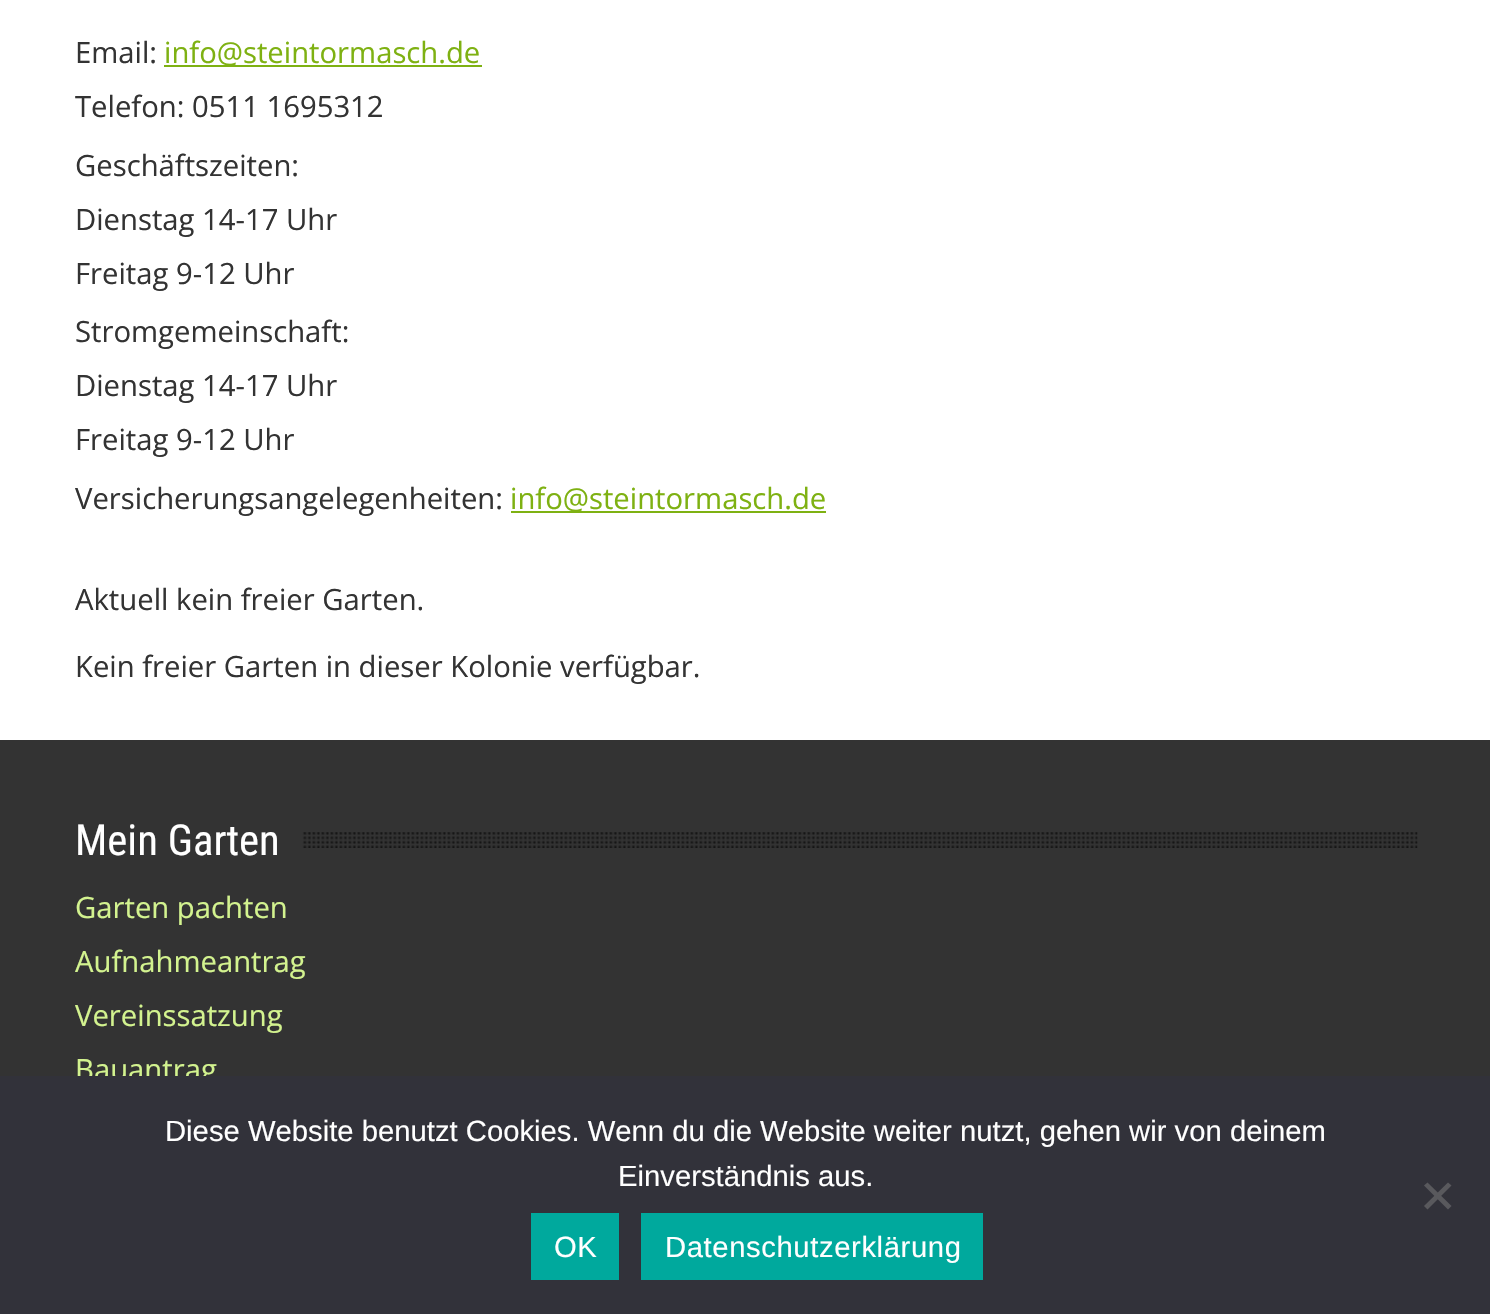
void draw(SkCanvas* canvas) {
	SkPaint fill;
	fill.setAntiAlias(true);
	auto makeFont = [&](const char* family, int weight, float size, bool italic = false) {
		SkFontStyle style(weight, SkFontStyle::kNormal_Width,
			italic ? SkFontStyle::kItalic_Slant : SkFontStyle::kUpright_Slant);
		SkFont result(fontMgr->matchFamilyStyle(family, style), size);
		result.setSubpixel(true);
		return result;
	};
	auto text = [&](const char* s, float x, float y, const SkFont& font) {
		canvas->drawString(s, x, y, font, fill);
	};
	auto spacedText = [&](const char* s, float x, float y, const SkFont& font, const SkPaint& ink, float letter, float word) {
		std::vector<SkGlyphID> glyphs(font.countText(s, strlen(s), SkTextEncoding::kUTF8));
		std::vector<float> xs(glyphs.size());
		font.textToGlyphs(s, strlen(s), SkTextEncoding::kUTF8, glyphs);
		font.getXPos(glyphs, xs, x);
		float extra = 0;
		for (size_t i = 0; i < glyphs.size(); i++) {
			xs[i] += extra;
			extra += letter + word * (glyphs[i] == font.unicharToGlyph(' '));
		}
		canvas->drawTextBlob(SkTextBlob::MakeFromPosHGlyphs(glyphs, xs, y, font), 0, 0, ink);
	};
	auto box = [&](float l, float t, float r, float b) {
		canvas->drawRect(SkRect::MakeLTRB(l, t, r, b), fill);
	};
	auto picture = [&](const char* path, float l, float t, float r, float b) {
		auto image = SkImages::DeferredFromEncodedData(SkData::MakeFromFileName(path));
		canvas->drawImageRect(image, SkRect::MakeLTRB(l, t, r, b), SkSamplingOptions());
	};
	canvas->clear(0xFFFFFFFF);
	fill.setColor(0xFF7EB112);
	box(164, 65, 482, 67);
	box(511, 511, 826, 513);
	fill.setColor(0xFF333333);
	box(0, 740, 1490, 1076);
	picture("image0.png", 302, 832, 1418, 848);
	auto font1 = makeFont("Open Sans", 400, 29.25f);
	text("Email:", 75, 63, font1);
	fill.setColor(0xFF7EB112);
	text("info@steintormasch.de", 164, 63, font1);
	fill.setColor(0xFF333333);
	text("Telefon: 0511 1695312", 75, 117, font1);
	text("Geschäftszeiten:", 75, 176, font1);
	text("Dienstag 14-17 Uhr", 75, 230, font1);
	text("Freitag 9-12 Uhr", 75, 284, font1);
	text("Stromgemeinschaft:", 75, 342, font1);
	text("Dienstag 14-17 Uhr", 75, 396, font1);
	text("Freitag 9-12 Uhr", 75, 450, font1);
	text("Versicherungsangelegenheiten:", 75, 509, font1);
	fill.setColor(0xFF7EB112);
	text("info@steintormasch.de", 510, 509, font1);
	fill.setColor(0xFF333333);
	text("Aktuell kein freier Garten.", 75, 610, font1);
	text("Kein freier Garten in dieser Kolonie verfügbar.", 75, 677, font1);
	auto font2 = makeFont("Roboto Condensed", 400, 42.75f);
	fill.setColor(0xFFFFFFFF);
	text("Mein Garten", 75, 855, font2);
	fill.setColor(0xFFD3F38F);
	text("Garten pachten", 75, 918, font1);
	text("Aufnahmeantrag", 75, 972, font1);
	text("Vereinssatzung", 75, 1026, font1);
	text("Bauantrag", 75, 1080, font1);
	fill.setColor(0xFF32323A);
	box(0, 1076, 1490, 1314);
	auto font3 = makeFont("Liberation Sans", 400, 29.25f);
	fill.setColor(0xFFFFFFFF);
	text("Diese Website benutzt Cookies. Wenn du die Website weiter nutzt, gehen wir von deinem", 165, 1141, font3);
	text("Einverständnis aus.", 618, 1186, font3);
	fill.setColor(0xFF59595D);
	canvas->drawPath(SkPathBuilder().moveTo(1448, 1182.5f).lineTo(1451.5f, 1185.5f).lineTo(1427.5f, 1209.5f).lineTo(1424, 1206).close().detach(), fill);
	canvas->drawPath(SkPathBuilder().moveTo(1424, 1185.5f).lineTo(1427.5f, 1182.5f).lineTo(1451.5f, 1206).lineTo(1448, 1209.5f).close().detach(), fill);
	fill.setColor(0xFF00A99D);
	box(531, 1213, 619, 1280);
	fill.setColor(0xFFFFFFFF);
	spacedText("OK", 554, 1257, font3, fill, 0.6f, 0);
	fill.setColor(0xFF00A99D);
	box(641, 1213, 983, 1280);
	fill.setColor(0xFFFFFFFF);
	spacedText("Datenschutzerklärung", 665, 1257, font3, fill, 0.6f, 0);
}
